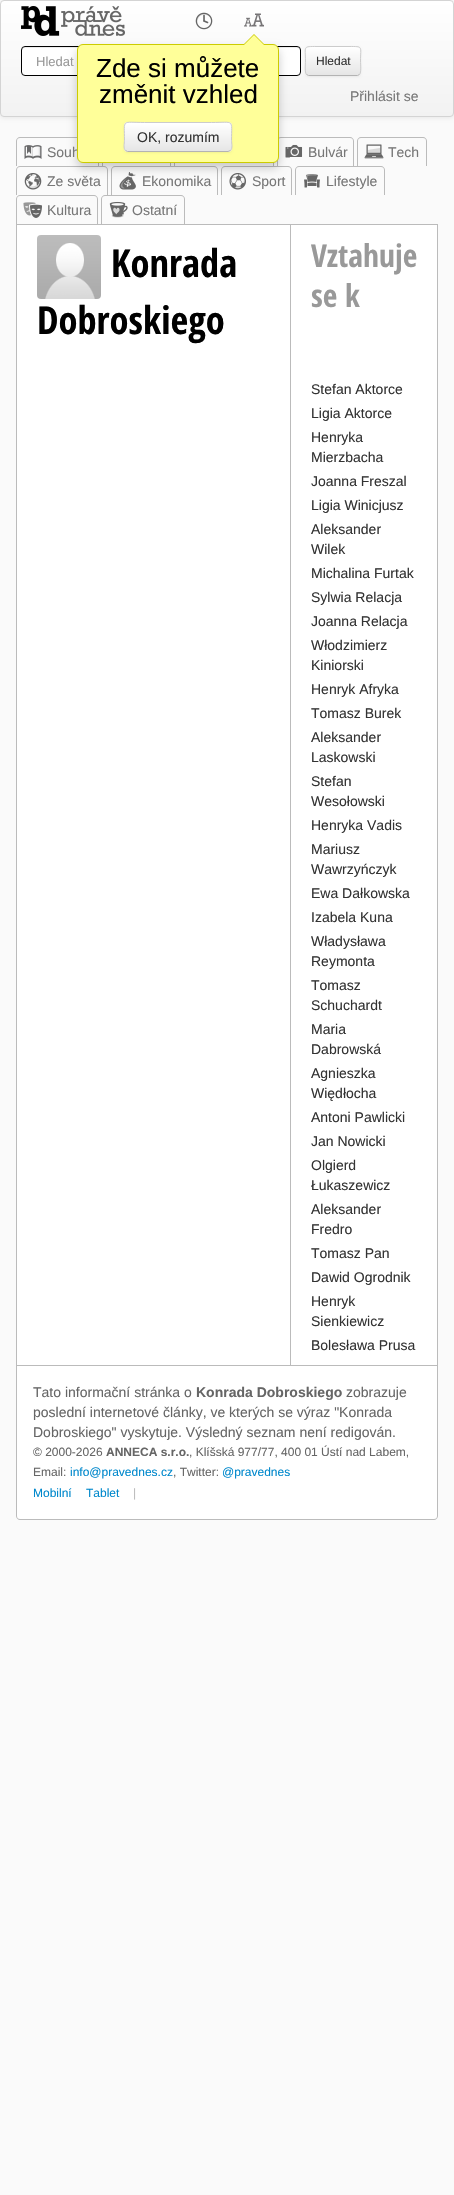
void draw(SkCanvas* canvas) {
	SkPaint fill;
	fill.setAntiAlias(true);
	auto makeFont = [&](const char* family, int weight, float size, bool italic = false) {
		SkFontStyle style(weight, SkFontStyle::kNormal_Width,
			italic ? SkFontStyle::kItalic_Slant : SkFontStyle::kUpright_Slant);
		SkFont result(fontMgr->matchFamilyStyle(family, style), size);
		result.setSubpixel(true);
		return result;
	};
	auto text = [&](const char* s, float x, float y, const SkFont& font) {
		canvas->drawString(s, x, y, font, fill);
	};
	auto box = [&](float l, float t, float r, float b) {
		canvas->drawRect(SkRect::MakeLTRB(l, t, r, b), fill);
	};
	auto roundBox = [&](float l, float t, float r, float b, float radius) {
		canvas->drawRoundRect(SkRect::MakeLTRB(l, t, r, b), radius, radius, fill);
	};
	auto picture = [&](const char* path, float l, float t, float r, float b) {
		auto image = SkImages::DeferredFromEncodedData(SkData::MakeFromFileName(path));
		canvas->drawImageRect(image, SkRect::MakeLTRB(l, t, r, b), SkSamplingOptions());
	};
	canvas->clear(0xFFFAFAFA);
	fill.setColor(0x12000000);
	fill.setMaskFilter(SkMaskFilter::MakeBlur(kNormal_SkBlurStyle, 2));
	canvas->drawRoundRect(SkRect::MakeLTRB(0, 1, 454, 118), 4, 4, fill);
	fill.setMaskFilter(nullptr);
	canvas->save();
	canvas->clipPath(SkPathBuilder().moveTo(4, 0).lineTo(450, 0).cubicTo(452, 0, 454, 2, 454, 4).lineTo(454, 113).cubicTo(454, 115, 452, 117, 450, 117).lineTo(4, 117).cubicTo(2, 117, 0, 115, 0, 113).lineTo(0, 4).cubicTo(0, 2, 2, 0, 4, 0).close().detach(), true);
	{
		const SkColor colors[] = {0xFFFFFFFF, 0xFFF2F2F2};
		const float stops[] = {0, 1};
		const SkPoint ends[] = {{227, 1}, {227, 116}};
		fill.setShader(SkGradientShader::MakeLinear(ends, colors, stops, 2, SkTileMode::kClamp));
		fill.setAlpha(255);
	}
	box(0, 1, 454, 116);
	canvas->restore();
	fill.setStyle(SkPaint::kStroke_Style);
	fill.setStrokeWidth(1);
	fill.setShader(nullptr);
	fill.setColor(0xFFD4D4D4);
	canvas->drawRoundRect(SkRect::MakeLTRB(0.5f, 0.5f, 453.5f, 116.5f), 3.5f, 3.5f, fill);
	fill.setStyle(SkPaint::kFill_Style);
	fill.setColor(0xFFFFFFFF);
	roundBox(21, 46, 301, 76, 4);
	fill.setColor(0xFFECECEC);
	canvas->drawPath(SkPathBuilder().moveTo(25, 48).lineTo(297, 48).cubicTo(299, 48, 300, 49, 300, 51).lineTo(300, 50).cubicTo(300, 48, 299, 47, 297, 47).lineTo(25, 47).cubicTo(23, 47, 22, 48, 22, 50).lineTo(22, 51).cubicTo(22, 49, 23, 48, 25, 48).close().detach(), fill);
	fill.setStyle(SkPaint::kStroke_Style);
	fill.setColor(0xFF000000);
	canvas->drawRoundRect(SkRect::MakeLTRB(21.5f, 46.5f, 300.5f, 75.5f), 3.5f, 3.5f, fill);
	fill.setStyle(SkPaint::kFill_Style);
	fill.setColor(0x0D000000);
	fill.setMaskFilter(SkMaskFilter::MakeBlur(kNormal_SkBlurStyle, 1));
	canvas->drawRoundRect(SkRect::MakeLTRB(305, 47, 361, 77), 4, 4, fill);
	fill.setMaskFilter(nullptr);
	fill.setColor(0xFFF5F5F5);
	roundBox(305, 46, 361, 76, 4);
	canvas->save();
	canvas->clipPath(SkPathBuilder().moveTo(309, 46).lineTo(357, 46).cubicTo(359, 46, 361, 48, 361, 50).lineTo(361, 72).cubicTo(361, 74, 359, 76, 357, 76).lineTo(309, 76).cubicTo(307, 76, 305, 74, 305, 72).lineTo(305, 50).cubicTo(305, 48, 307, 46, 309, 46).close().detach(), true);
	{
		const SkColor colors[] = {0xFFFFFFFF, 0xFFE6E6E6};
		const float stops[] = {0, 1};
		const SkPoint ends[] = {{333, 47}, {333, 75}};
		fill.setShader(SkGradientShader::MakeLinear(ends, colors, stops, 2, SkTileMode::kClamp));
		fill.setAlpha(255);
	}
	box(305, 47, 361, 75);
	canvas->restore();
	fill.setShader(nullptr);
	fill.setColor(0xFFFFFFFF);
	canvas->drawPath(SkPathBuilder().moveTo(309, 48).lineTo(357, 48).cubicTo(359, 48, 360, 49, 360, 51).cubicTo(360, 45, 353, 47, 349, 47).lineTo(317, 47).cubicTo(313, 47, 306, 45, 306, 51).cubicTo(306, 49, 307, 48, 309, 48).close().detach(), fill);
	fill.setStyle(SkPaint::kStroke_Style);
	fill.setColor(0xFFB3B3B3);
	canvas->drawPath(SkPathBuilder().moveTo(359.5f, 74.5f).lineTo(357.5f, 75.5f).lineTo(308.5f, 75.5f).lineTo(306.5f, 74.5f).detach(), fill);
	fill.setColor(0xFFCCCCCC);
	canvas->drawPath(SkPathBuilder().moveTo(306.5f, 74.5f).cubicTo(304.5f, 72.5f, 305.5f, 64, 305.5f, 61).cubicTo(305.5f, 46, 302.5f, 46.5f, 317, 46.5f).lineTo(349, 46.5f).cubicTo(363.5f, 46.5f, 360.5f, 46, 360.5f, 61).cubicTo(360.5f, 64, 361.5f, 72.5f, 359.5f, 74.5f).detach(), fill);
	picture("image0.png", 21, 6, 125, 36);
	picture("image1.png", 195, 12, 213, 30);
	picture("image2.png", 244, 13, 264, 27);
	fill.setStyle(SkPaint::kFill_Style);
	fill.setColor(0xFFBBBBBB);
	canvas->drawPath(SkPathBuilder(SkPathFillType::kEvenOdd).moveTo(20, 137).lineTo(95, 137).cubicTo(97, 137, 99, 139, 99, 141).lineTo(99, 166).lineTo(16, 166).lineTo(16, 141).cubicTo(16, 139, 18, 137, 20, 137).close().moveTo(20, 138).lineTo(95, 138).cubicTo(97, 138, 98, 139, 98, 141).lineTo(98, 166).lineTo(17, 166).lineTo(17, 141).cubicTo(17, 139, 18, 138, 20, 138).close().detach(), fill);
	canvas->drawPath(SkPathBuilder(SkPathFillType::kEvenOdd).moveTo(106, 137).lineTo(167, 137).cubicTo(169, 137, 171, 139, 171, 141).lineTo(171, 166).lineTo(102, 166).lineTo(102, 141).cubicTo(102, 139, 104, 137, 106, 137).close().moveTo(106, 138).lineTo(167, 138).cubicTo(169, 138, 170, 139, 170, 141).lineTo(170, 166).lineTo(103, 166).lineTo(103, 141).cubicTo(103, 139, 104, 138, 106, 138).close().detach(), fill);
	canvas->drawPath(SkPathBuilder(SkPathFillType::kEvenOdd).moveTo(178, 137).lineTo(270, 137).cubicTo(272, 137, 274, 139, 274, 141).lineTo(274, 166).lineTo(174, 166).lineTo(174, 141).cubicTo(174, 139, 176, 137, 178, 137).close().moveTo(178, 138).lineTo(270, 138).cubicTo(272, 138, 273, 139, 273, 141).lineTo(273, 166).lineTo(175, 166).lineTo(175, 141).cubicTo(175, 139, 176, 138, 178, 138).close().detach(), fill);
	canvas->drawPath(SkPathBuilder(SkPathFillType::kEvenOdd).moveTo(281, 137).lineTo(350, 137).cubicTo(352, 137, 354, 139, 354, 141).lineTo(354, 166).lineTo(277, 166).lineTo(277, 141).cubicTo(277, 139, 279, 137, 281, 137).close().moveTo(281, 138).lineTo(350, 138).cubicTo(352, 138, 353, 139, 353, 141).lineTo(353, 166).lineTo(278, 166).lineTo(278, 141).cubicTo(278, 139, 279, 138, 281, 138).close().detach(), fill);
	picture("image4.png", 285, 144, 303, 158);
	canvas->drawPath(SkPathBuilder(SkPathFillType::kEvenOdd).moveTo(20, 166).lineTo(104, 166).cubicTo(106, 166, 108, 168, 108, 170).lineTo(108, 195).lineTo(16, 195).lineTo(16, 170).cubicTo(16, 168, 18, 166, 20, 166).close().moveTo(20, 167).lineTo(104, 167).cubicTo(106, 167, 107, 168, 107, 170).lineTo(107, 195).lineTo(17, 195).lineTo(17, 170).cubicTo(17, 168, 18, 167, 20, 167).close().detach(), fill);
	canvas->drawPath(SkPathBuilder(SkPathFillType::kEvenOdd).moveTo(115, 166).lineTo(214, 166).cubicTo(216, 166, 218, 168, 218, 170).lineTo(218, 195).lineTo(111, 195).lineTo(111, 170).cubicTo(111, 168, 113, 166, 115, 166).close().moveTo(115, 167).lineTo(214, 167).cubicTo(216, 167, 217, 168, 217, 170).lineTo(217, 195).lineTo(112, 195).lineTo(112, 170).cubicTo(112, 168, 113, 167, 115, 167).close().detach(), fill);
	picture("image7.png", 119, 172, 136, 190);
	canvas->drawPath(SkPathBuilder(SkPathFillType::kEvenOdd).moveTo(225, 166).lineTo(288, 166).cubicTo(290, 166, 292, 168, 292, 170).lineTo(292, 195).lineTo(221, 195).lineTo(221, 170).cubicTo(221, 168, 223, 166, 225, 166).close().moveTo(225, 167).lineTo(288, 167).cubicTo(290, 167, 291, 168, 291, 170).lineTo(291, 195).lineTo(222, 195).lineTo(222, 170).cubicTo(222, 168, 223, 167, 225, 167).close().detach(), fill);
	picture("image8.png", 229, 173, 246, 190);
	fill.setColor(0x33000000);
	fill.setMaskFilter(SkMaskFilter::MakeBlur(kNormal_SkBlurStyle, 5));
	canvas->drawRoundRect(SkRect::MakeLTRB(77, 49, 279, 168), 6, 6, fill);
	fill.setMaskFilter(nullptr);
	fill.setColor(0xFFBBBBBB);
	box(16, 224, 438, 225);
	picture("image3.png", 24, 145, 42, 159);
	canvas->drawPath(SkPathBuilder(SkPathFillType::kEvenOdd).moveTo(361, 137).lineTo(423, 137).cubicTo(425, 137, 427, 139, 427, 141).lineTo(427, 166).lineTo(357, 166).lineTo(357, 141).cubicTo(357, 139, 359, 137, 361, 137).close().moveTo(361, 138).lineTo(423, 138).cubicTo(425, 138, 426, 139, 426, 141).lineTo(426, 166).lineTo(358, 166).lineTo(358, 141).cubicTo(358, 139, 359, 138, 361, 138).close().detach(), fill);
	picture("image5.png", 364, 144, 384, 159);
	picture("image6.png", 24, 173, 42, 190);
	canvas->drawPath(SkPathBuilder(SkPathFillType::kEvenOdd).moveTo(299, 166).lineTo(381, 166).cubicTo(383, 166, 385, 168, 385, 170).lineTo(385, 195).lineTo(295, 195).lineTo(295, 170).cubicTo(295, 168, 297, 166, 299, 166).close().moveTo(299, 167).lineTo(381, 167).cubicTo(383, 167, 384, 168, 384, 170).lineTo(384, 195).lineTo(296, 195).lineTo(296, 170).cubicTo(296, 168, 297, 167, 299, 167).close().detach(), fill);
	picture("image9.png", 304, 174, 320, 188);
	canvas->drawPath(SkPathBuilder(SkPathFillType::kEvenOdd).moveTo(20, 195).lineTo(94, 195).cubicTo(96, 195, 98, 197, 98, 199).lineTo(98, 224).lineTo(16, 224).lineTo(16, 199).cubicTo(16, 197, 18, 195, 20, 195).close().moveTo(20, 196).lineTo(94, 196).cubicTo(96, 196, 97, 197, 97, 199).lineTo(97, 224).lineTo(17, 224).lineTo(17, 199).cubicTo(17, 197, 18, 196, 20, 196).close().detach(), fill);
	picture("image10.png", 23, 202, 42, 218);
	canvas->drawPath(SkPathBuilder(SkPathFillType::kEvenOdd).moveTo(105, 195).lineTo(181, 195).cubicTo(183, 195, 185, 197, 185, 199).lineTo(185, 224).lineTo(101, 224).lineTo(101, 199).cubicTo(101, 197, 103, 195, 105, 195).close().moveTo(105, 196).lineTo(181, 196).cubicTo(183, 196, 184, 197, 184, 199).lineTo(184, 224).lineTo(102, 224).lineTo(102, 199).cubicTo(102, 197, 103, 196, 105, 196).close().detach(), fill);
	picture("image11.png", 109, 201, 128, 218);
	fill.setColor(0xFFFFFFFF);
	canvas->drawPath(SkPathBuilder().moveTo(16, 225).lineTo(438, 225).lineTo(438, 1516).cubicTo(438, 1518, 436, 1520, 434, 1520).lineTo(20, 1520).cubicTo(18, 1520, 16, 1518, 16, 1516).close().detach(), fill);
	fill.setColor(0xFFBBBBBB);
	canvas->drawPath(SkPathBuilder(SkPathFillType::kEvenOdd).moveTo(16, 225).lineTo(438, 225).lineTo(438, 1516).cubicTo(438, 1518, 436, 1520, 434, 1520).lineTo(20, 1520).cubicTo(18, 1520, 16, 1518, 16, 1516).close().moveTo(17, 225).lineTo(437, 225).lineTo(437, 1516).cubicTo(437, 1518, 436, 1519, 434, 1519).lineTo(20, 1519).cubicTo(18, 1519, 17, 1518, 17, 1516).close().detach(), fill);
	picture("image12.png", 37, 235, 101, 299);
	box(290, 225, 291, 1366);
	box(17, 1365, 437, 1366);
	auto font1 = makeFont("Liberation Sans", 400, 13);
	fill.setColor(0xFF999999);
	text("Hledat", 36, 66, font1);
	auto font2 = makeFont("Liberation Sans", 400, 12);
	fill.setColor(0xFF333333);
	text("Hledat", 316, 65, font2);
	auto font3 = makeFont("Liberation Sans", 400, 14);
	fill.setColor(0xFF777777);
	text("Přihlásit se", 350, 101, font3);
	text("Souh", 47, 157, font3);
	fill.setColor(0xFFFFFF99);
	canvas->drawRoundRect(SkRect::MakeLTRB(77.5f, 44.5f, 278.5f, 162.5f), 5.5f, 5.5f, fill);
	fill.setStyle(SkPaint::kStroke_Style);
	fill.setColor(0xFFCCCC00);
	canvas->drawRoundRect(SkRect::MakeLTRB(77.5f, 44.5f, 278.5f, 162.5f), 5.5f, 5.5f, fill);
	fill.setStyle(SkPaint::kFill_Style);
	canvas->drawPath(SkPathBuilder().moveTo(265, 45).lineTo(243, 45).lineTo(254, 34).close().detach(), fill);
	fill.setColor(0xFFFFFF99);
	canvas->drawPath(SkPathBuilder().moveTo(264, 45).lineTo(244, 45).lineTo(254, 35).close().detach(), fill);
	fill.setColor(0x0D000000);
	fill.setMaskFilter(SkMaskFilter::MakeBlur(kNormal_SkBlurStyle, 1));
	canvas->drawRoundRect(SkRect::MakeLTRB(124, 123, 232, 153), 4, 4, fill);
	fill.setMaskFilter(nullptr);
	fill.setColor(0xFFF5F5F5);
	roundBox(124, 122, 232, 152, 4);
	canvas->save();
	canvas->clipPath(SkPathBuilder().moveTo(128, 122).lineTo(228, 122).cubicTo(230, 122, 232, 124, 232, 126).lineTo(232, 148).cubicTo(232, 150, 230, 152, 228, 152).lineTo(128, 152).cubicTo(126, 152, 124, 150, 124, 148).lineTo(124, 126).cubicTo(124, 124, 126, 122, 128, 122).close().detach(), true);
	{
		const SkColor colors[] = {0xFFFFFFFF, 0xFFE6E6E6};
		const float stops[] = {0, 1};
		const SkPoint ends[] = {{178, 123}, {178, 151}};
		fill.setShader(SkGradientShader::MakeLinear(ends, colors, stops, 2, SkTileMode::kClamp));
		fill.setAlpha(255);
	}
	box(124, 123, 232, 151);
	canvas->restore();
	fill.setStyle(SkPaint::kStroke_Style);
	fill.setShader(nullptr);
	fill.setColor(0xFFB3B3B3);
	canvas->drawPath(SkPathBuilder().moveTo(230.5f, 150.5f).lineTo(228, 151.5f).lineTo(127.5f, 151.5f).lineTo(125.5f, 150.5f).detach(), fill);
	fill.setColor(0xFFCCCCCC);
	canvas->drawPath(SkPathBuilder().moveTo(125.5f, 150.5f).cubicTo(123, 148, 124.5f, 143.5f, 124.5f, 140.5f).cubicTo(124.5f, 118.5f, 121, 122.5f, 144.5f, 122.5f).lineTo(211.5f, 122.5f).cubicTo(235, 122.5f, 231.5f, 118.5f, 231.5f, 140.5f).cubicTo(231.5f, 143.5f, 233, 148, 230.5f, 150.5f).detach(), fill);
	fill.setStyle(SkPaint::kFill_Style);
	fill.setColor(0xFF333333);
	text("OK, rozumím", 137, 142, font3);
	auto font4 = makeFont("Liberation Sans", 400, 26);
	fill.setColor(0xFF000000);
	text("změnit vzhled", 99, 103, font4);
	text("Zde si můžete", 96, 77, font4);
	fill.setColor(0xFF777777);
	text("Bulvár", 308, 157, font3);
	text("Tech", 388, 157, font3);
	text("Ze světa", 47, 186, font3);
	text("Ekonomika", 142, 186, font3);
	text("Sport", 252, 186, font3);
	text("Lifestyle", 326, 186, font3);
	text("Kultura", 47, 215, font3);
	text("Ostatní", 132, 215, font3);
	auto font5 = makeFont("Open Sans Condensed", 700, 38.5f);
	fill.setColor(0xFF000000);
	text("Konrada", 111, 277, font5);
	text("Dobroskiego", 37, 334, font5);
	auto font6 = makeFont("Open Sans Condensed", 700, 31.5f);
	fill.setColor(0xFF999999);
	text("Vztahuje", 311, 267, font6);
	text("se k", 311, 307, font6);
	fill.setColor(0xFF333333);
	text("Stefan Aktorce", 311, 394, font3);
	text("Ligia Aktorce", 311, 418, font3);
	text("Henryka", 311, 442, font3);
	text("Mierzbacha", 311, 462, font3);
	text("Joanna Freszal", 311, 486, font3);
	text("Ligia Winicjusz", 311, 510, font3);
	text("Aleksander", 311, 534, font3);
	text("Wilek", 311, 554, font3);
	text("Michalina Furtak", 311, 578, font3);
	text("Sylwia Relacja", 311, 602, font3);
	text("Joanna Relacja", 311, 626, font3);
	text("Włodzimierz", 311, 650, font3);
	text("Kiniorski", 311, 670, font3);
	text("Henryk Afryka", 311, 694, font3);
	text("Tomasz Burek", 311, 718, font3);
	text("Aleksander", 311, 742, font3);
	text("Laskowski", 311, 762, font3);
	text("Stefan", 311, 786, font3);
	text("Wesołowski", 311, 806, font3);
	text("Henryka Vadis", 311, 830, font3);
	text("Mariusz", 311, 854, font3);
	text("Wawrzyńczyk", 311, 874, font3);
	text("Ewa Dałkowska", 311, 898, font3);
	text("Izabela Kuna", 311, 922, font3);
	text("Władysława", 311, 946, font3);
	text("Reymonta", 311, 966, font3);
	text("Tomasz", 311, 990, font3);
	text("Schuchardt", 311, 1010, font3);
	text("Maria", 311, 1034, font3);
	text("Dabrowská", 311, 1054, font3);
	text("Agnieszka", 311, 1078, font3);
	text("Więdłocha", 311, 1098, font3);
	text("Antoni Pawlicki", 311, 1122, font3);
	text("Jan Nowicki", 311, 1146, font3);
	text("Olgierd", 311, 1170, font3);
	text("Łukaszewicz", 311, 1190, font3);
	text("Aleksander", 311, 1214, font3);
	text("Fredro", 311, 1234, font3);
	text("Tomasz Pan", 311, 1258, font3);
	text("Dawid Ogrodnik", 311, 1282, font3);
	text("Henryk", 311, 1306, font3);
	text("Sienkiewicz", 311, 1326, font3);
	text("Bolesława Prusa", 311, 1350, font3);
	fill.setColor(0xFF666666);
	text("Tato informační stránka o", 33, 1397, font3);
	auto font7 = makeFont("Liberation Sans", 700, 14);
	text("Konrada Dobroskiego", 196, 1397, font7);
	text("zobrazuje", 346, 1397, font3);
	text("poslední internetové články, ve kterých se výraz \"Konrada", 33, 1417, font3);
	text("Dobroskiego\" vyskytuje. Výsledný seznam není redigován.", 33, 1437, font3);
	text("© 2000-2026", 33, 1456, font2);
	auto font8 = makeFont("Liberation Sans", 700, 12);
	text("ANNECA s.r.o.", 106, 1456, font8);
	text(", Klíšská 977/77, 400 01 Ústí nad Labem,", 189, 1456, font2);
	text("Email:", 33, 1476, font2);
	fill.setColor(0xFF0088CC);
	text("info@pravednes.cz", 70, 1476, font2);
	fill.setColor(0xFF666666);
	text(", Twitter:", 173, 1476, font2);
	fill.setColor(0xFF0088CC);
	text("@pravednes", 222, 1476, font2);
	text("Mobilní", 33, 1497, font2);
	text("Tablet", 86, 1497, font2);
	fill.setColor(0xFFBBBBBB);
	text("|", 133, 1497, font2);
}
